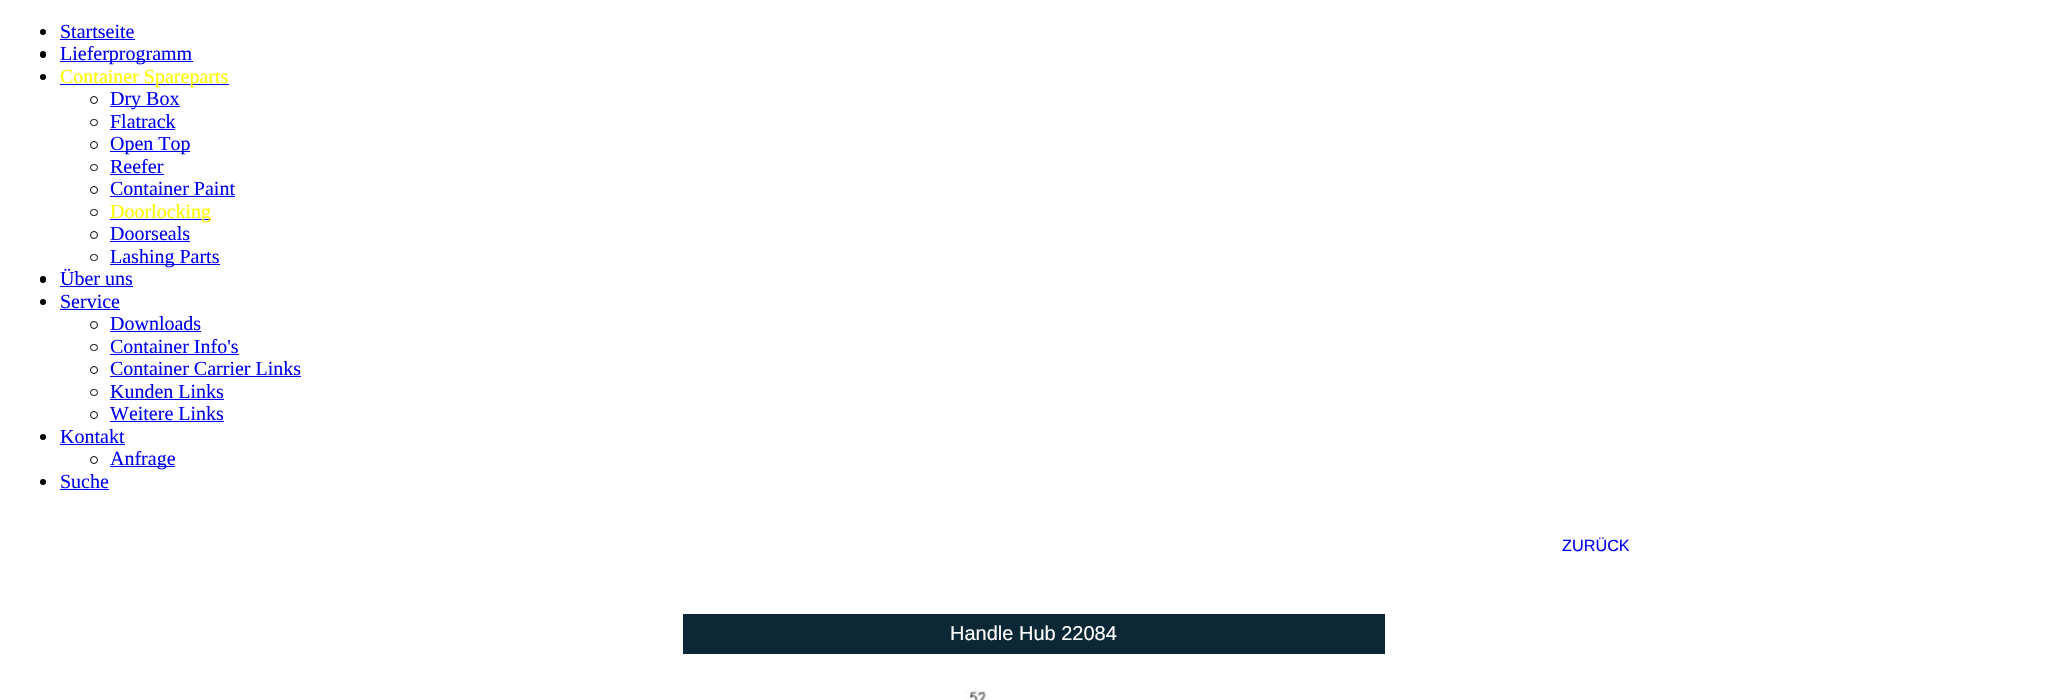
void draw(SkCanvas* canvas) {
	SkPaint fill;
	fill.setAntiAlias(true);
	auto makeFont = [&](const char* family, int weight, float size, bool italic = false) {
		SkFontStyle style(weight, SkFontStyle::kNormal_Width,
			italic ? SkFontStyle::kItalic_Slant : SkFontStyle::kUpright_Slant);
		SkFont result(fontMgr->matchFamilyStyle(family, style), size);
		result.setSubpixel(true);
		return result;
	};
	auto text = [&](const char* s, float x, float y, const SkFont& font) {
		canvas->drawString(s, x, y, font, fill);
	};
	auto box = [&](float l, float t, float r, float b) {
		canvas->drawRect(SkRect::MakeLTRB(l, t, r, b), fill);
	};
	auto roundBox = [&](float l, float t, float r, float b, float radius) {
		canvas->drawRoundRect(SkRect::MakeLTRB(l, t, r, b), radius, radius, fill);
	};
	auto picture = [&](const char* path, float l, float t, float r, float b) {
		auto image = SkImages::DeferredFromEncodedData(SkData::MakeFromFileName(path));
		canvas->drawImageRect(image, SkRect::MakeLTRB(l, t, r, b), SkSamplingOptions());
	};
	canvas->clear(0xFFFFFFFF);
	fill.setColor(0xFF000000);
	canvas->drawCircle(43, 32, 3, fill);
	fill.setColor(0xFF0000EE);
	box(60, 39, 135, 40);
	fill.setColor(0xFF000000);
	roundBox(40, 51, 46, 58, 3);
	fill.setColor(0xFF0000EE);
	box(60, 61, 193, 62);
	fill.setColor(0xFF000000);
	canvas->drawCircle(43, 77, 3, fill);
	fill.setColor(0xFF0000EE);
	box(60, 84, 229, 85);
	fill.setStyle(SkPaint::kStroke_Style);
	fill.setStrokeWidth(1);
	fill.setColor(0xFF000000);
	canvas->drawCircle(94, 100, 3.5f, fill);
	fill.setStyle(SkPaint::kFill_Style);
	fill.setColor(0xFF0000EE);
	box(110, 106, 180, 107);
	fill.setStyle(SkPaint::kStroke_Style);
	fill.setColor(0xFF000000);
	canvas->drawRoundRect(SkRect::MakeLTRB(90.5f, 119.5f, 97.5f, 125.5f), 3, 3, fill);
	fill.setStyle(SkPaint::kFill_Style);
	fill.setColor(0xFF0000EE);
	box(110, 129, 175, 130);
	fill.setStyle(SkPaint::kStroke_Style);
	fill.setColor(0xFF000000);
	canvas->drawCircle(94, 145, 3.5f, fill);
	fill.setStyle(SkPaint::kFill_Style);
	fill.setColor(0xFF0000EE);
	box(110, 151, 190, 152);
	fill.setStyle(SkPaint::kStroke_Style);
	fill.setColor(0xFF000000);
	canvas->drawRoundRect(SkRect::MakeLTRB(90.5f, 164.5f, 97.5f, 170.5f), 3, 3, fill);
	fill.setStyle(SkPaint::kFill_Style);
	fill.setColor(0xFF0000EE);
	box(110, 174, 164, 175);
	fill.setStyle(SkPaint::kStroke_Style);
	fill.setColor(0xFF000000);
	canvas->drawCircle(94, 190, 3.5f, fill);
	fill.setStyle(SkPaint::kFill_Style);
	fill.setColor(0xFF0000EE);
	box(110, 196, 235, 197);
	fill.setStyle(SkPaint::kStroke_Style);
	fill.setColor(0xFF000000);
	canvas->drawRoundRect(SkRect::MakeLTRB(90.5f, 209.5f, 97.5f, 215.5f), 3, 3, fill);
	fill.setStyle(SkPaint::kFill_Style);
	fill.setColor(0xFF0000EE);
	box(110, 219, 211, 220);
	fill.setStyle(SkPaint::kStroke_Style);
	fill.setColor(0xFF000000);
	canvas->drawCircle(94, 235, 3.5f, fill);
	fill.setStyle(SkPaint::kFill_Style);
	fill.setColor(0xFF0000EE);
	box(110, 241, 190, 242);
	fill.setStyle(SkPaint::kStroke_Style);
	fill.setColor(0xFF000000);
	canvas->drawRoundRect(SkRect::MakeLTRB(90.5f, 254.5f, 97.5f, 260.5f), 3, 3, fill);
	fill.setStyle(SkPaint::kFill_Style);
	fill.setColor(0xFF0000EE);
	box(110, 264, 220, 265);
	fill.setColor(0xFF000000);
	roundBox(40, 276, 46, 283, 3);
	fill.setColor(0xFF0000EE);
	box(60, 286, 133, 287);
	fill.setColor(0xFF000000);
	canvas->drawCircle(43, 302, 3, fill);
	fill.setColor(0xFF0000EE);
	box(60, 309, 120, 310);
	fill.setStyle(SkPaint::kStroke_Style);
	fill.setColor(0xFF000000);
	canvas->drawCircle(94, 325, 3.5f, fill);
	fill.setStyle(SkPaint::kFill_Style);
	fill.setColor(0xFF0000EE);
	box(110, 331, 201, 332);
	fill.setStyle(SkPaint::kStroke_Style);
	fill.setColor(0xFF000000);
	canvas->drawRoundRect(SkRect::MakeLTRB(90.5f, 344.5f, 97.5f, 350.5f), 3, 3, fill);
	fill.setStyle(SkPaint::kFill_Style);
	fill.setColor(0xFF0000EE);
	box(110, 354, 239, 355);
	fill.setStyle(SkPaint::kStroke_Style);
	fill.setColor(0xFF000000);
	canvas->drawCircle(94, 370, 3.5f, fill);
	fill.setStyle(SkPaint::kFill_Style);
	fill.setColor(0xFF0000EE);
	box(110, 376, 301, 377);
	fill.setStyle(SkPaint::kStroke_Style);
	fill.setColor(0xFF000000);
	canvas->drawRoundRect(SkRect::MakeLTRB(90.5f, 389.5f, 97.5f, 395.5f), 3, 3, fill);
	fill.setStyle(SkPaint::kFill_Style);
	fill.setColor(0xFF0000EE);
	box(110, 399, 224, 400);
	fill.setStyle(SkPaint::kStroke_Style);
	fill.setColor(0xFF000000);
	canvas->drawCircle(94, 415, 3.5f, fill);
	fill.setStyle(SkPaint::kFill_Style);
	fill.setColor(0xFF0000EE);
	box(110, 421, 224, 422);
	fill.setColor(0xFF000000);
	canvas->drawCircle(43, 437, 3, fill);
	fill.setColor(0xFF0000EE);
	box(60, 444, 125, 445);
	fill.setStyle(SkPaint::kStroke_Style);
	fill.setColor(0xFF000000);
	canvas->drawCircle(94, 460, 3.5f, fill);
	fill.setStyle(SkPaint::kFill_Style);
	fill.setColor(0xFF0000EE);
	box(110, 466, 175, 467);
	fill.setColor(0xFF000000);
	canvas->drawCircle(43, 482, 3, fill);
	fill.setColor(0xFF0000EE);
	box(60, 489, 109, 490);
	fill.setColor(0xFF0C2837);
	box(683, 614, 1385, 654);
	picture("image0.png", 964, 690, 991, 700);
	auto font1 = makeFont("Liberation Serif", 400, 20);
	fill.setColor(0xFF0000EE);
	text("Startseite", 60, 38, font1);
	text("Lieferprogramm", 60, 60, font1);
	fill.setColor(0xFFFFFF00);
	text("Container Spareparts", 60, 83, font1);
	fill.setColor(0xFF0000EE);
	text("Dry Box", 110, 105, font1);
	text("Flatrack", 110, 128, font1);
	text("Open Top", 110, 150, font1);
	text("Reefer", 110, 173, font1);
	text("Container Paint", 110, 195, font1);
	fill.setColor(0xFFFFFF00);
	text("Doorlocking", 110, 218, font1);
	fill.setColor(0xFF0000EE);
	text("Doorseals", 110, 240, font1);
	text("Lashing Parts", 110, 263, font1);
	text("Über uns", 60, 285, font1);
	text("Service", 60, 308, font1);
	text("Downloads", 110, 330, font1);
	text("Container Info's", 110, 353, font1);
	text("Container Carrier Links", 110, 375, font1);
	text("Kunden Links", 110, 398, font1);
	text("Weitere Links", 110, 420, font1);
	text("Kontakt", 60, 443, font1);
	text("Anfrage", 110, 465, font1);
	text("Suche", 60, 488, font1);
	auto font2 = makeFont("Liberation Sans", 400, 16.25f);
	text("ZURÜCK", 1562, 551, font2);
	auto font3 = makeFont("Liberation Sans", 400, 20);
	fill.setColor(0xFFFFFFFF);
	text("Handle Hub 22084", 950, 640, font3);
}
